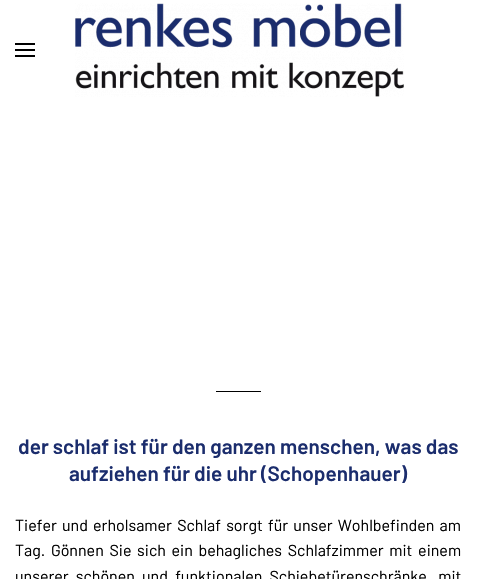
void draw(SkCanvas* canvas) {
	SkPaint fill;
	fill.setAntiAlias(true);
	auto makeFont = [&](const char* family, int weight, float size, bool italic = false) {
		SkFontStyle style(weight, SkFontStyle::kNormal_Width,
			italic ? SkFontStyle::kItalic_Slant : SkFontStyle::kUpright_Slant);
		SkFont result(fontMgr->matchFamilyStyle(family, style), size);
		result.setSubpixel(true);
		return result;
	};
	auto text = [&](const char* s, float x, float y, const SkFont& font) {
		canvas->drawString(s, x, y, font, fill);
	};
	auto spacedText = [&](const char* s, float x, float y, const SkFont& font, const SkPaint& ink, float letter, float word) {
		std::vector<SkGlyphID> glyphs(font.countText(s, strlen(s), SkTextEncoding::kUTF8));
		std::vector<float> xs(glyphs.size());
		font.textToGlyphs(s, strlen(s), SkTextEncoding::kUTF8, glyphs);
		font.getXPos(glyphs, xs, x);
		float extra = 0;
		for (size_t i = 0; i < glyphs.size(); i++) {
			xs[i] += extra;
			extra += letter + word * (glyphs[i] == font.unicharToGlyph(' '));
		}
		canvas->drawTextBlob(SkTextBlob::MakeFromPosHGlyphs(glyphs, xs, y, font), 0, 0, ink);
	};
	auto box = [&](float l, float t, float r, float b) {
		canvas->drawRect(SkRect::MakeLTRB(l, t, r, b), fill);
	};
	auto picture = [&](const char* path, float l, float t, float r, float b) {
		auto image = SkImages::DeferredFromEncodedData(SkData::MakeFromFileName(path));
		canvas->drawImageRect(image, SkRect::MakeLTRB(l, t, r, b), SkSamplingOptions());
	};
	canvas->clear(0xFFFFFFFF);
	fill.setColor(0xFF000000);
	box(15, 43, 35, 45);
	box(15, 49, 35, 51);
	box(15, 55, 35, 57);
	picture("image0.png", 75, 3, 404, 97);
	box(216, 391, 261, 392);
	auto font1 = makeFont("Barlow", 600, 20.8f);
	fill.setColor(0xFF1B2D6D);
	text("der schlaf ist für den ganzen menschen, was das", 18, 454, font1);
	text("aufziehen für die uhr (Schopenhauer)", 69, 481, font1);
	auto font2 = makeFont("Barlow", 400, 16);
	fill.setColor(0xFF000000);
	spacedText("Tiefer und erholsamer Schlaf sorgt für unser Wohlbefinden am", 15, 531, font2, fill, 0, 2);
	spacedText("Tag. Gönnen Sie sich ein behagliches Schlafzimmer mit einem", 15, 556, font2, fill, 0, 2.5f);
	spacedText("unserer schönen und funktionalen Schiebetürenschränke, mit", 15, 582, font2, fill, 0, 4);
}
